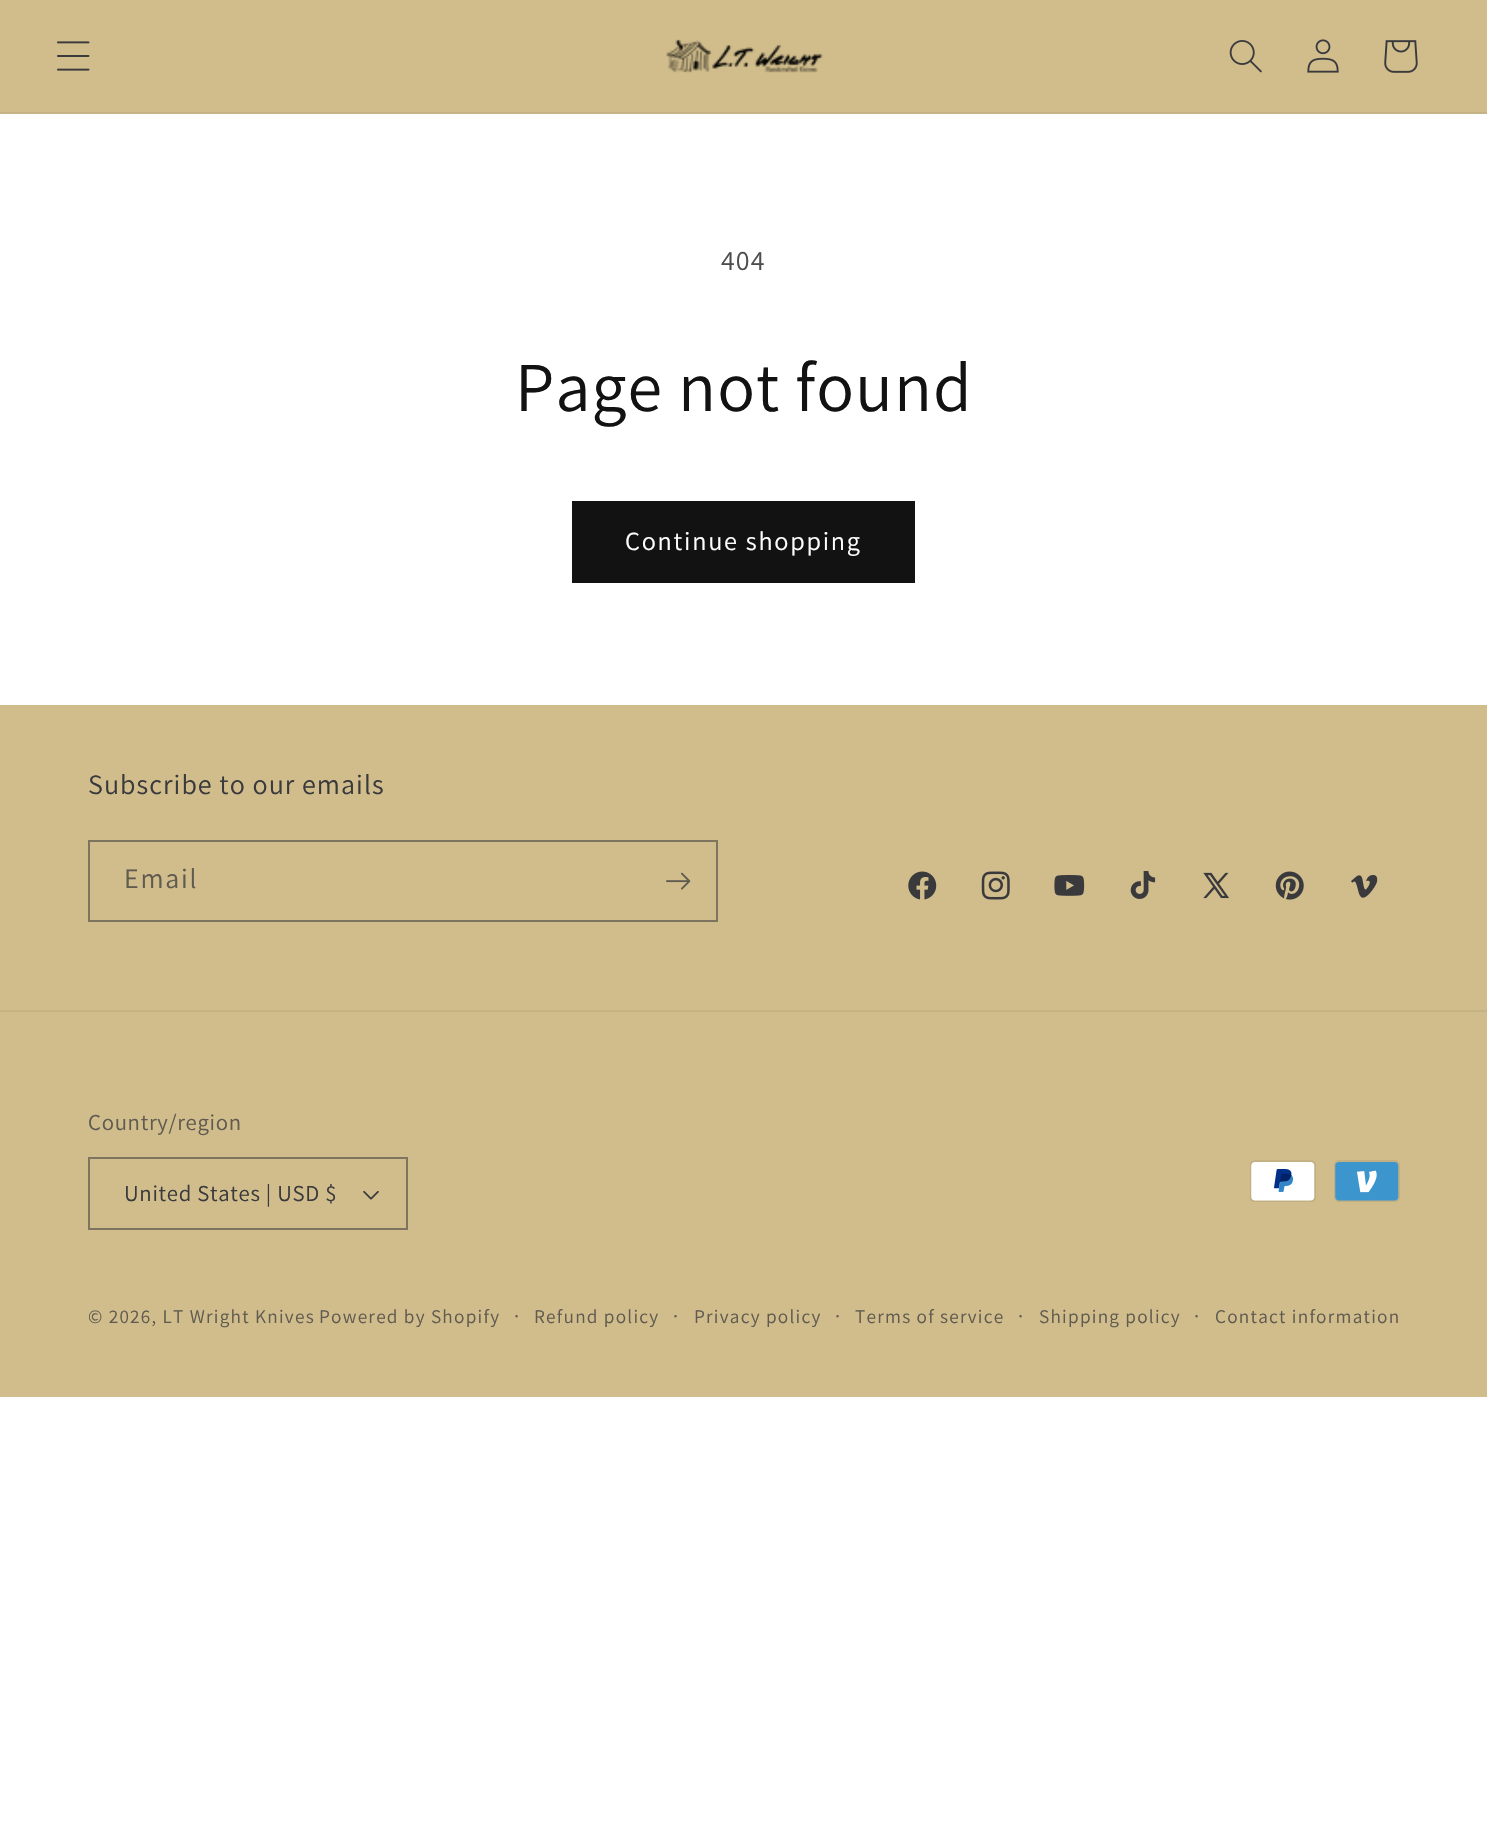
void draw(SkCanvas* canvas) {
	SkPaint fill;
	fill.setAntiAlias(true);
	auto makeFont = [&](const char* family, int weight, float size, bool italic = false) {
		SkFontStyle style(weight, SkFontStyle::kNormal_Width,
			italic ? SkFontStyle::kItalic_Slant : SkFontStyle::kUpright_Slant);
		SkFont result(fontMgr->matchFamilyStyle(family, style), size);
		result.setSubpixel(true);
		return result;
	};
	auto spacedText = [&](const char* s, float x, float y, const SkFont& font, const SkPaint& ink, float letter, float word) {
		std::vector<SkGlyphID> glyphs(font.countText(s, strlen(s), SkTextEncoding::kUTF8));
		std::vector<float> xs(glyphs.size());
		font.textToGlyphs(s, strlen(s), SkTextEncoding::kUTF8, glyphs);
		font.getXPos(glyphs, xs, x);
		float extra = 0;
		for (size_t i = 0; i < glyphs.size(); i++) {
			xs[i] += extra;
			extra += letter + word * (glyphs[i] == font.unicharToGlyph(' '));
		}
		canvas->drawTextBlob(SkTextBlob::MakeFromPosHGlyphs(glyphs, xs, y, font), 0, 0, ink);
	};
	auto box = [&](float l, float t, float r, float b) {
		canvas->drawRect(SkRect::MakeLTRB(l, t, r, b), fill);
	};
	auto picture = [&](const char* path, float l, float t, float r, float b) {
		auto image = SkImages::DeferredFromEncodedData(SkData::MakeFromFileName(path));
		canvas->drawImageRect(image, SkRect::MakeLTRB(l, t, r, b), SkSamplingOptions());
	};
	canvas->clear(0xFFFFFFFF);
	fill.setColor(0xFFD1BD8C);
	box(0, 0, 1487, 112);
	fill.setColor(0xFFC5B386);
	box(0, 112, 1487, 114);
	picture("image0.png", 57, 41, 90, 71);
	picture("image1.png", 666, 39, 823, 73);
	picture("image2.png", 1229, 40, 1262, 73);
	picture("image3.png", 1307, 39, 1339, 73);
	picture("image4.png", 1384, 40, 1418, 73);
	fill.setColor(0xFF121212);
	box(572, 501, 915, 583);
	fill.setColor(0xFFD1BD8C);
	box(0, 705, 1487, 1397);
	fill.setStyle(SkPaint::kStroke_Style);
	fill.setStrokeWidth(2);
	fill.setColor(0xFF7E7560);
	canvas->drawRect(SkRect::MakeLTRB(89, 841, 717, 921), fill);
	picture("image5.png", 666, 872, 691, 890);
	picture("image6.png", 908, 871, 937, 900);
	picture("image7.png", 981, 871, 1010, 900);
	picture("image8.png", 1054, 875, 1085, 896);
	picture("image9.png", 1130, 871, 1156, 899);
	picture("image10.png", 1203, 872, 1229, 899);
	picture("image11.png", 1275, 871, 1304, 900);
	picture("image12.png", 1351, 875, 1378, 898);
	fill.setStyle(SkPaint::kFill_Style);
	fill.setColor(0xFFC5B386);
	box(0, 1010, 1487, 1012);
	picture("image13.png", 363, 1191, 379, 1200);
	fill.setStyle(SkPaint::kStroke_Style);
	fill.setColor(0xFF7E7560);
	canvas->drawRect(SkRect::MakeLTRB(89, 1158, 407, 1229), fill);
	picture("image14.png", 1250, 1160, 1316, 1202);
	picture("image15.png", 1334, 1160, 1400, 1202);
	auto font1 = makeFont("Assistant", 400, 28);
	fill.setStyle(SkPaint::kFill_Style);
	fill.setColor(0xFF4D4D4D);
	spacedText("404", 721, 270, font1, fill, 1.05f, 0);
	auto font2 = makeFont("Assistant", 400, 70);
	fill.setColor(0xFF121212);
	spacedText("Page not found", 515, 411, font2, fill, 1.05f, 0);
	auto font3 = makeFont("Assistant", 400, 26.25f);
	fill.setColor(0xFFFFFFFF);
	spacedText("Continue shopping", 625, 550, font3, fill, 1.75f, 0);
	fill.setColor(0xFF3A3A3C);
	spacedText("Subscribe to our emails", 88, 794, font1, fill, 1.05f, 0);
	fill.setColor(0xFF605B50);
	spacedText("Email", 124, 888, font1, fill, 1.75f, 0);
	auto font4 = makeFont("Assistant", 400, 22.75f);
	spacedText("Country/region", 88, 1130, font4, fill, 0.7f, 0);
	fill.setColor(0xFF3A3A3C);
	spacedText("United States | USD $", 124, 1201, font4, fill, 0.7f, 0);
	auto font5 = makeFont("Assistant", 400, 19.25f);
	fill.setColor(0xFF605B50);
	spacedText("© 2026, LT Wright Knives", 88, 1323, font5, fill, 1.25f, 0);
	spacedText("Powered by Shopify", 319, 1323, font5, fill, 1.25f, 0);
	auto font6 = makeFont("Assistant", 400, 21);
	spacedText("·", 514, 1323, font6, fill, 1.25f, 0);
	spacedText("Refund policy", 534, 1323, font5, fill, 1.25f, 0);
	spacedText("·", 673, 1323, font6, fill, 1.25f, 0);
	spacedText("Privacy policy", 694, 1323, font5, fill, 1.25f, 0);
	spacedText("·", 835, 1323, font6, fill, 1.25f, 0);
	spacedText("Terms of service", 855, 1323, font5, fill, 1.25f, 0);
	spacedText("·", 1018, 1323, font6, fill, 1.25f, 0);
	spacedText("Shipping policy", 1039, 1323, font5, fill, 1.25f, 0);
	spacedText("·", 1194, 1323, font6, fill, 1.25f, 0);
	spacedText("Contact information", 1215, 1323, font5, fill, 1.25f, 0);
}
